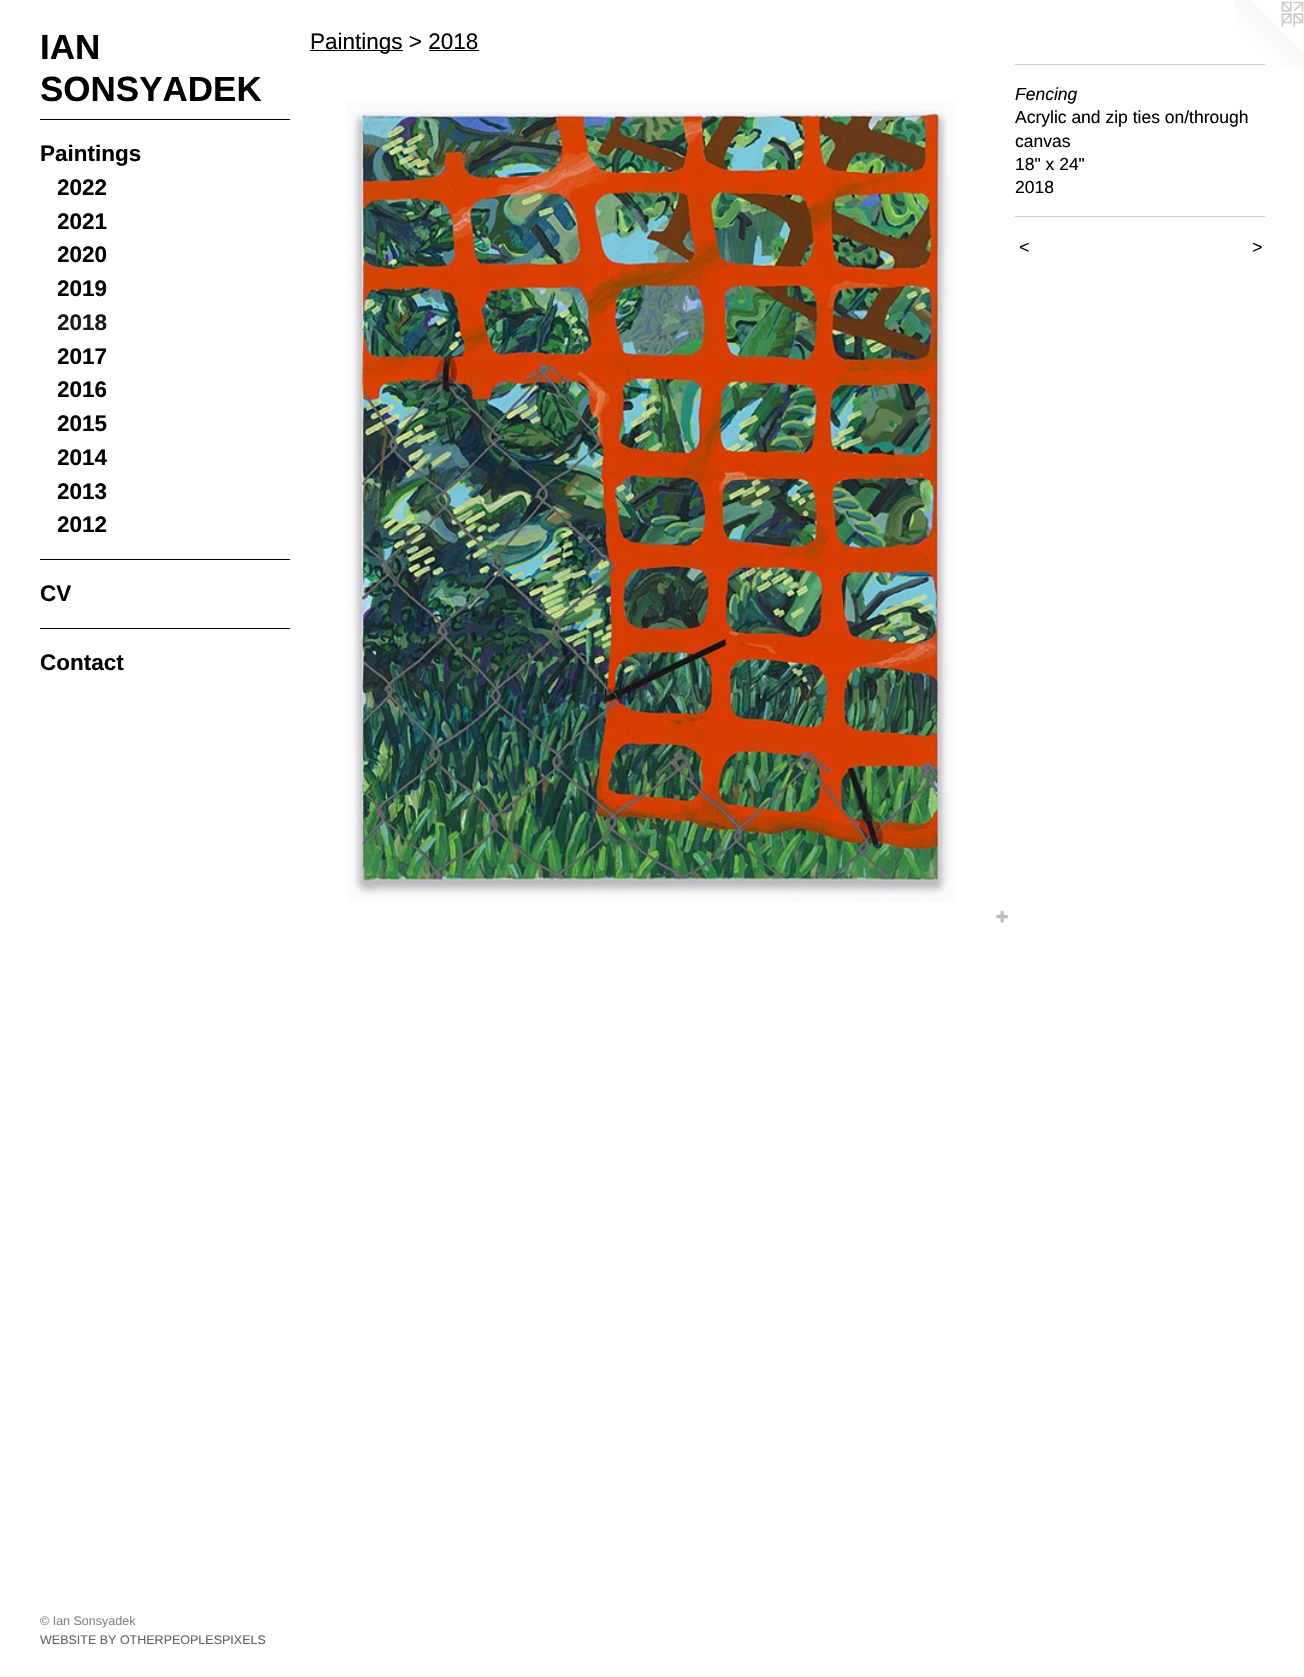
void draw(SkCanvas* canvas) {
	SkPaint fill;
	fill.setAntiAlias(true);
	auto makeFont = [&](const char* family, int weight, float size, bool italic = false) {
		SkFontStyle style(weight, SkFontStyle::kNormal_Width,
			italic ? SkFontStyle::kItalic_Slant : SkFontStyle::kUpright_Slant);
		SkFont result(fontMgr->matchFamilyStyle(family, style), size);
		result.setSubpixel(true);
		return result;
	};
	auto text = [&](const char* s, float x, float y, const SkFont& font) {
		canvas->drawString(s, x, y, font, fill);
	};
	auto spacedText = [&](const char* s, float x, float y, const SkFont& font, const SkPaint& ink, float letter, float word) {
		std::vector<SkGlyphID> glyphs(font.countText(s, strlen(s), SkTextEncoding::kUTF8));
		std::vector<float> xs(glyphs.size());
		font.textToGlyphs(s, strlen(s), SkTextEncoding::kUTF8, glyphs);
		font.getXPos(glyphs, xs, x);
		float extra = 0;
		for (size_t i = 0; i < glyphs.size(); i++) {
			xs[i] += extra;
			extra += letter + word * (glyphs[i] == font.unicharToGlyph(' '));
		}
		canvas->drawTextBlob(SkTextBlob::MakeFromPosHGlyphs(glyphs, xs, y, font), 0, 0, ink);
	};
	auto box = [&](float l, float t, float r, float b) {
		canvas->drawRect(SkRect::MakeLTRB(l, t, r, b), fill);
	};
	auto picture = [&](const char* path, float l, float t, float r, float b) {
		auto image = SkImages::DeferredFromEncodedData(SkData::MakeFromFileName(path));
		canvas->drawImageRect(image, SkRect::MakeLTRB(l, t, r, b), SkSamplingOptions());
	};
	canvas->clear(0xFFFFFFFF);
	fill.setColor(0xFF000000);
	box(40, 119, 290, 120);
	box(40, 559, 290, 560);
	box(40, 628, 290, 629);
	box(310, 50, 403, 51);
	box(429, 50, 479, 51);
	picture("image0.png", 347, 101, 956, 902);
	picture("image1.png", 996, 910, 1008, 923);
	picture("image2.png", 1235, 0, 1304, 69);
	fill.setColor(0xFFCCCCCC);
	box(1015, 64, 1265, 65);
	box(1015, 216, 1265, 217);
	auto font1 = makeFont("Liberation Sans", 700, 35);
	fill.setColor(0xFF000000);
	text("IAN", 40, 59, font1);
	text("SONSYADEK", 40, 101, font1);
	auto font2 = makeFont("Liberation Sans", 700, 22.5f);
	text("Paintings", 40, 161, font2);
	canvas->save();
	canvas->clipRect(SkRect::MakeLTRB(58, 171, 290, 205));
	text("2022", 57, 195, font2);
	canvas->restore();
	canvas->save();
	canvas->clipRect(SkRect::MakeLTRB(58, 205, 290, 239));
	text("2021", 57, 229, font2);
	canvas->restore();
	canvas->save();
	canvas->clipRect(SkRect::MakeLTRB(58, 239, 290, 273));
	text("2020", 57, 262, font2);
	canvas->restore();
	canvas->save();
	canvas->clipRect(SkRect::MakeLTRB(58, 273, 290, 306));
	text("2019", 57, 296, font2);
	canvas->restore();
	canvas->save();
	canvas->clipRect(SkRect::MakeLTRB(58, 306, 290, 340));
	fill.setColor(0xFF1A1A1A);
	text("2018", 57, 330, font2);
	canvas->restore();
	canvas->save();
	canvas->clipRect(SkRect::MakeLTRB(58, 340, 290, 374));
	fill.setColor(0xFF000000);
	text("2017", 57, 364, font2);
	canvas->restore();
	canvas->save();
	canvas->clipRect(SkRect::MakeLTRB(58, 374, 290, 408));
	text("2016", 57, 397, font2);
	canvas->restore();
	canvas->save();
	canvas->clipRect(SkRect::MakeLTRB(58, 408, 290, 441));
	text("2015", 57, 431, font2);
	canvas->restore();
	canvas->save();
	canvas->clipRect(SkRect::MakeLTRB(58, 441, 290, 475));
	text("2014", 57, 465, font2);
	canvas->restore();
	canvas->save();
	canvas->clipRect(SkRect::MakeLTRB(58, 475, 290, 509));
	text("2013", 57, 499, font2);
	canvas->restore();
	canvas->save();
	canvas->clipRect(SkRect::MakeLTRB(58, 509, 290, 543));
	text("2012", 57, 532, font2);
	canvas->restore();
	text("CV", 40, 601, font2);
	text("Contact", 40, 670, font2);
	auto font3 = makeFont("Liberation Sans", 400, 12.5f);
	fill.setColor(0xFF858585);
	text("© Ian Sonsyadek", 40, 1625, font3);
	fill.setColor(0xFF636363);
	text("WEBSITE BY OTHERPEOPLESPIXELS", 40, 1644, font3);
	auto font4 = makeFont("Liberation Sans", 400, 22.5f);
	fill.setColor(0xFF000000);
	text("Paintings > 2018", 310, 49, font4);
	auto font5 = makeFont("Liberation Sans", 400, 17.5f, true);
	text("Fencing", 1015, 100, font5);
	auto font6 = makeFont("Liberation Sans", 400, 17.5f);
	text("Acrylic and zip ties on/through", 1015, 123, font6);
	text("canvas", 1015, 147, font6);
	text("18\" x 24\"", 1015, 170, font6);
	text("2018", 1015, 193, font6);
	spacedText("<", 1019, 253, font5, fill, 1, 0);
	spacedText(">", 1252, 253, font5, fill, 1, 0);
}
